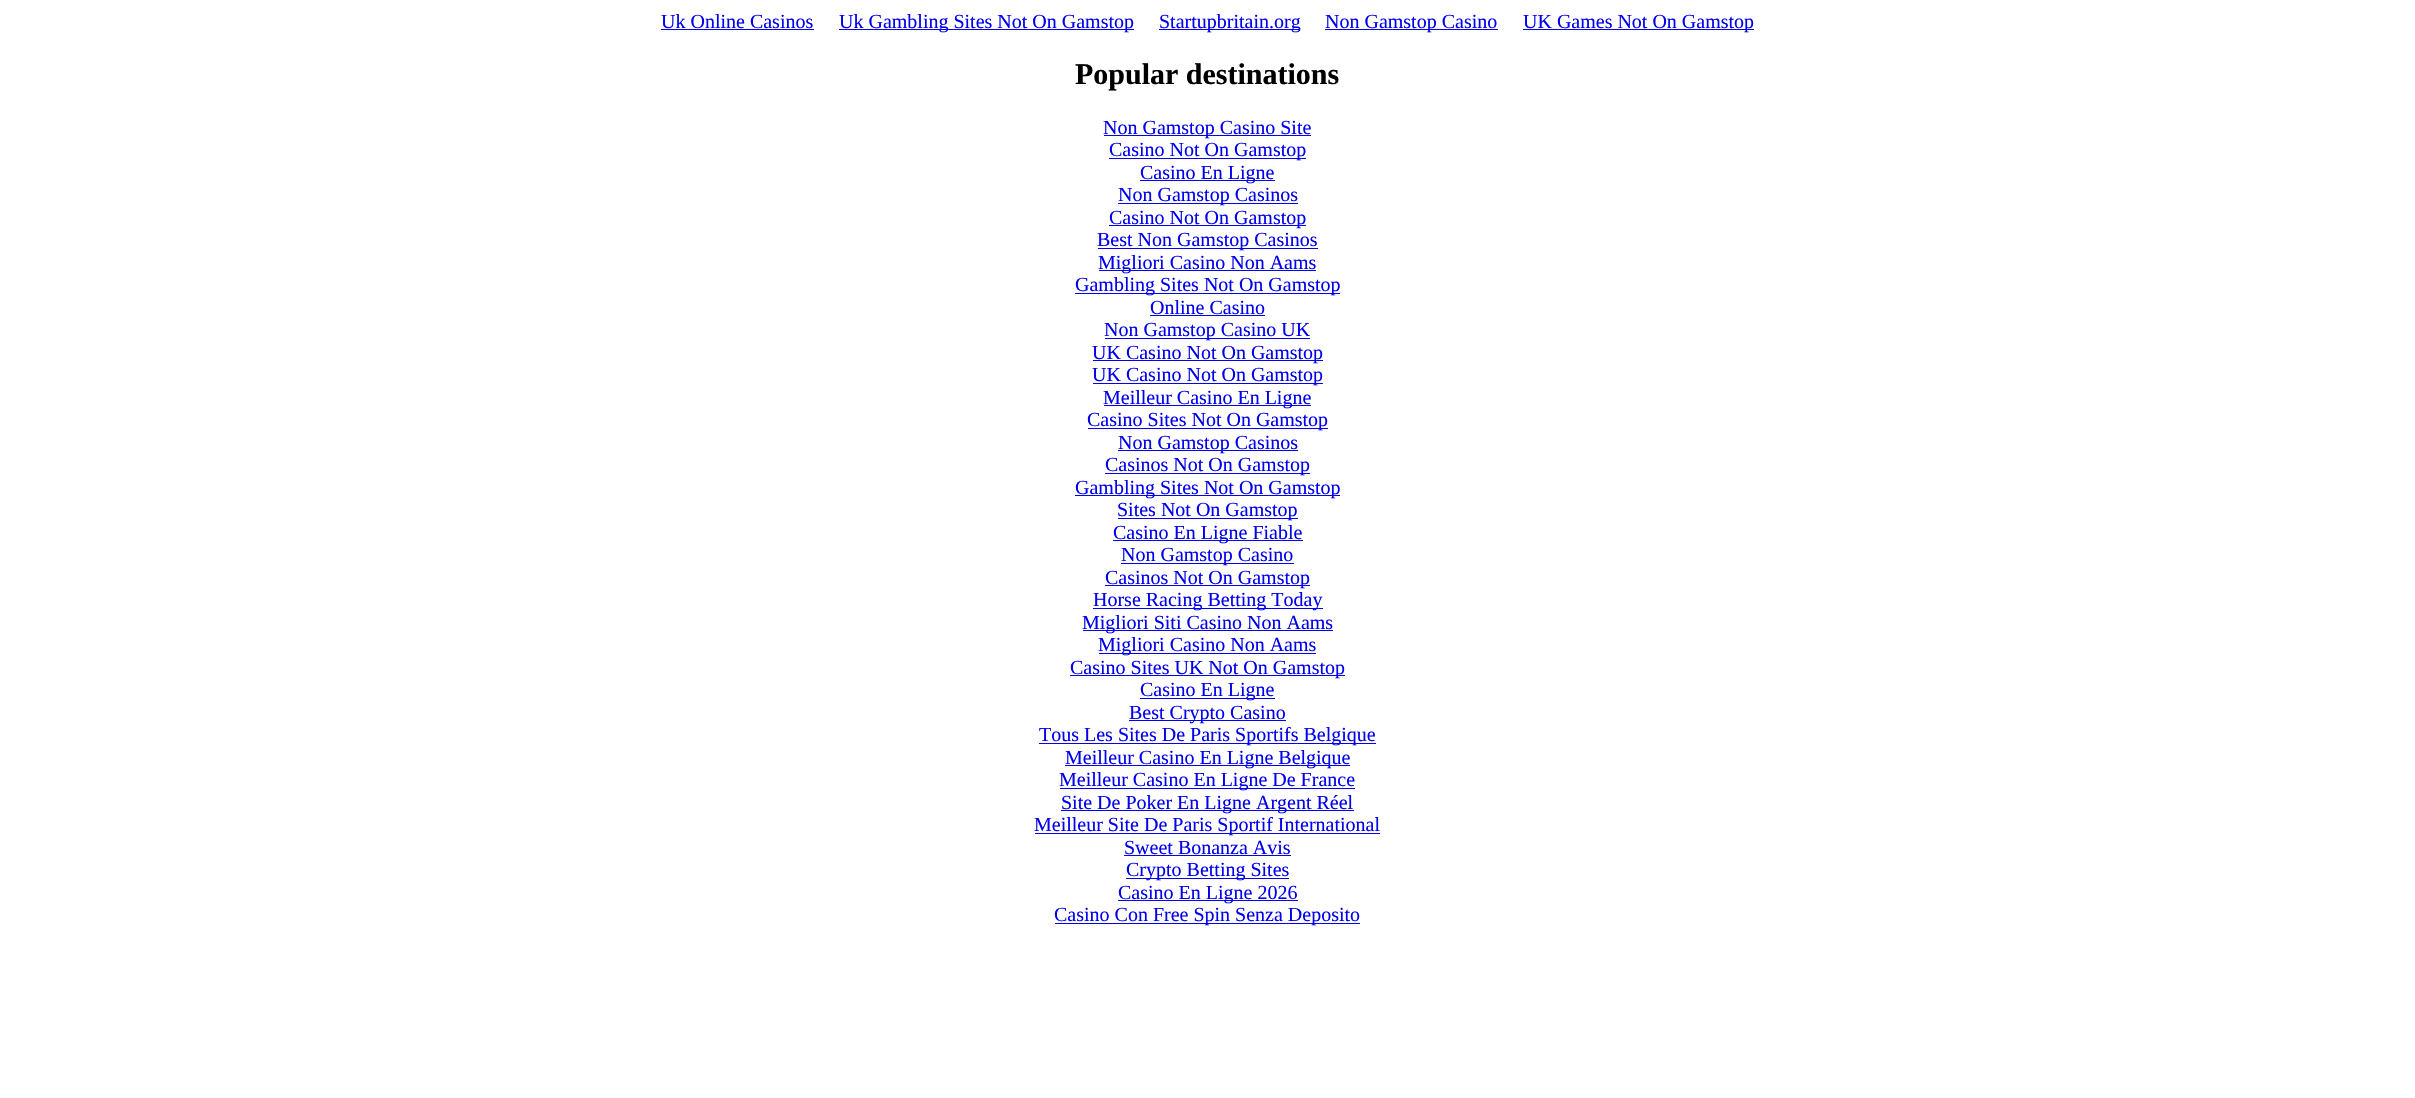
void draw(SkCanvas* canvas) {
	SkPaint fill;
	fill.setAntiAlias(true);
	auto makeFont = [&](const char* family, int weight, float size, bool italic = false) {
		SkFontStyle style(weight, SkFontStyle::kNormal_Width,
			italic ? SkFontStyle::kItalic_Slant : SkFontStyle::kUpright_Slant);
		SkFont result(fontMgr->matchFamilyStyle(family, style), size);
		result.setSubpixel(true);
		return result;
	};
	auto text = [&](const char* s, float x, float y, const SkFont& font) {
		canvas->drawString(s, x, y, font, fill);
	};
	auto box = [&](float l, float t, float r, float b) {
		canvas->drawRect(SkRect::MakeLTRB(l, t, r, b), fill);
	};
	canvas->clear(0xFFFFFFFF);
	fill.setColor(0xFF0000EE);
	box(661, 29, 814, 30);
	box(839, 29, 1134, 30);
	box(1159, 29, 1300, 30);
	box(1325, 29, 1498, 30);
	box(1523, 29, 1754, 30);
	box(1104, 135, 1311, 136);
	box(1109, 158, 1306, 159);
	box(1140, 180, 1275, 181);
	box(1118, 203, 1298, 204);
	box(1109, 225, 1306, 226);
	box(1098, 248, 1318, 249);
	box(1099, 270, 1316, 271);
	box(1075, 293, 1340, 294);
	box(1150, 315, 1265, 316);
	box(1105, 338, 1310, 339);
	box(1093, 360, 1323, 361);
	box(1093, 383, 1323, 384);
	box(1104, 405, 1311, 406);
	box(1088, 428, 1328, 429);
	box(1118, 450, 1298, 451);
	box(1105, 473, 1310, 474);
	box(1075, 495, 1340, 496);
	box(1118, 518, 1298, 519);
	box(1113, 540, 1303, 541);
	box(1121, 563, 1294, 564);
	box(1105, 585, 1310, 586);
	box(1093, 608, 1323, 609);
	box(1083, 630, 1333, 631);
	box(1099, 653, 1316, 654);
	box(1070, 675, 1345, 676);
	box(1140, 698, 1275, 699);
	box(1129, 720, 1286, 721);
	box(1039, 743, 1376, 744);
	box(1065, 765, 1350, 766);
	box(1060, 788, 1355, 789);
	box(1061, 810, 1354, 811);
	box(1035, 833, 1380, 834);
	box(1124, 855, 1291, 856);
	box(1126, 878, 1289, 879);
	box(1118, 900, 1298, 901);
	box(1055, 923, 1360, 924);
	auto font1 = makeFont("Liberation Serif", 400, 20);
	text("Uk Online Casinos", 661, 28, font1);
	text("Uk Gambling Sites Not On Gamstop", 839, 28, font1);
	text("Startupbritain.org", 1159, 28, font1);
	text("Non Gamstop Casino", 1325, 28, font1);
	text("UK Games Not On Gamstop", 1523, 28, font1);
	auto font2 = makeFont("Liberation Serif", 700, 30);
	fill.setColor(0xFF000000);
	text("Popular destinations", 1075, 84, font2);
	fill.setColor(0xFF0000EE);
	text("Non Gamstop Casino Site", 1103, 134, font1);
	text("Casino Not On Gamstop", 1109, 156, font1);
	text("Casino En Ligne", 1140, 179, font1);
	text("Non Gamstop Casinos", 1118, 201, font1);
	text("Casino Not On Gamstop", 1109, 224, font1);
	text("Best Non Gamstop Casinos", 1097, 246, font1);
	text("Migliori Casino Non Aams", 1098, 269, font1);
	text("Gambling Sites Not On Gamstop", 1075, 291, font1);
	text("Online Casino", 1150, 314, font1);
	text("Non Gamstop Casino UK", 1104, 336, font1);
	text("UK Casino Not On Gamstop", 1092, 359, font1);
	text("UK Casino Not On Gamstop", 1092, 381, font1);
	text("Meilleur Casino En Ligne", 1103, 404, font1);
	text("Casino Sites Not On Gamstop", 1087, 426, font1);
	text("Non Gamstop Casinos", 1118, 449, font1);
	text("Casinos Not On Gamstop", 1105, 471, font1);
	text("Gambling Sites Not On Gamstop", 1075, 494, font1);
	text("Sites Not On Gamstop", 1117, 516, font1);
	text("Casino En Ligne Fiable", 1113, 539, font1);
	text("Non Gamstop Casino", 1121, 561, font1);
	text("Casinos Not On Gamstop", 1105, 584, font1);
	text("Horse Racing Betting Today", 1093, 606, font1);
	text("Migliori Siti Casino Non Aams", 1082, 629, font1);
	text("Migliori Casino Non Aams", 1098, 651, font1);
	text("Casino Sites UK Not On Gamstop", 1070, 674, font1);
	text("Casino En Ligne", 1140, 696, font1);
	text("Best Crypto Casino", 1129, 719, font1);
	text("Tous Les Sites De Paris Sportifs Belgique", 1039, 741, font1);
	text("Meilleur Casino En Ligne Belgique", 1065, 764, font1);
	text("Meilleur Casino En Ligne De France", 1059, 786, font1);
	text("Site De Poker En Ligne Argent Réel", 1061, 809, font1);
	text("Meilleur Site De Paris Sportif International", 1034, 831, font1);
	text("Sweet Bonanza Avis", 1124, 854, font1);
	text("Crypto Betting Sites", 1126, 876, font1);
	text("Casino En Ligne 2026", 1118, 899, font1);
	text("Casino Con Free Spin Senza Deposito", 1054, 921, font1);
}
